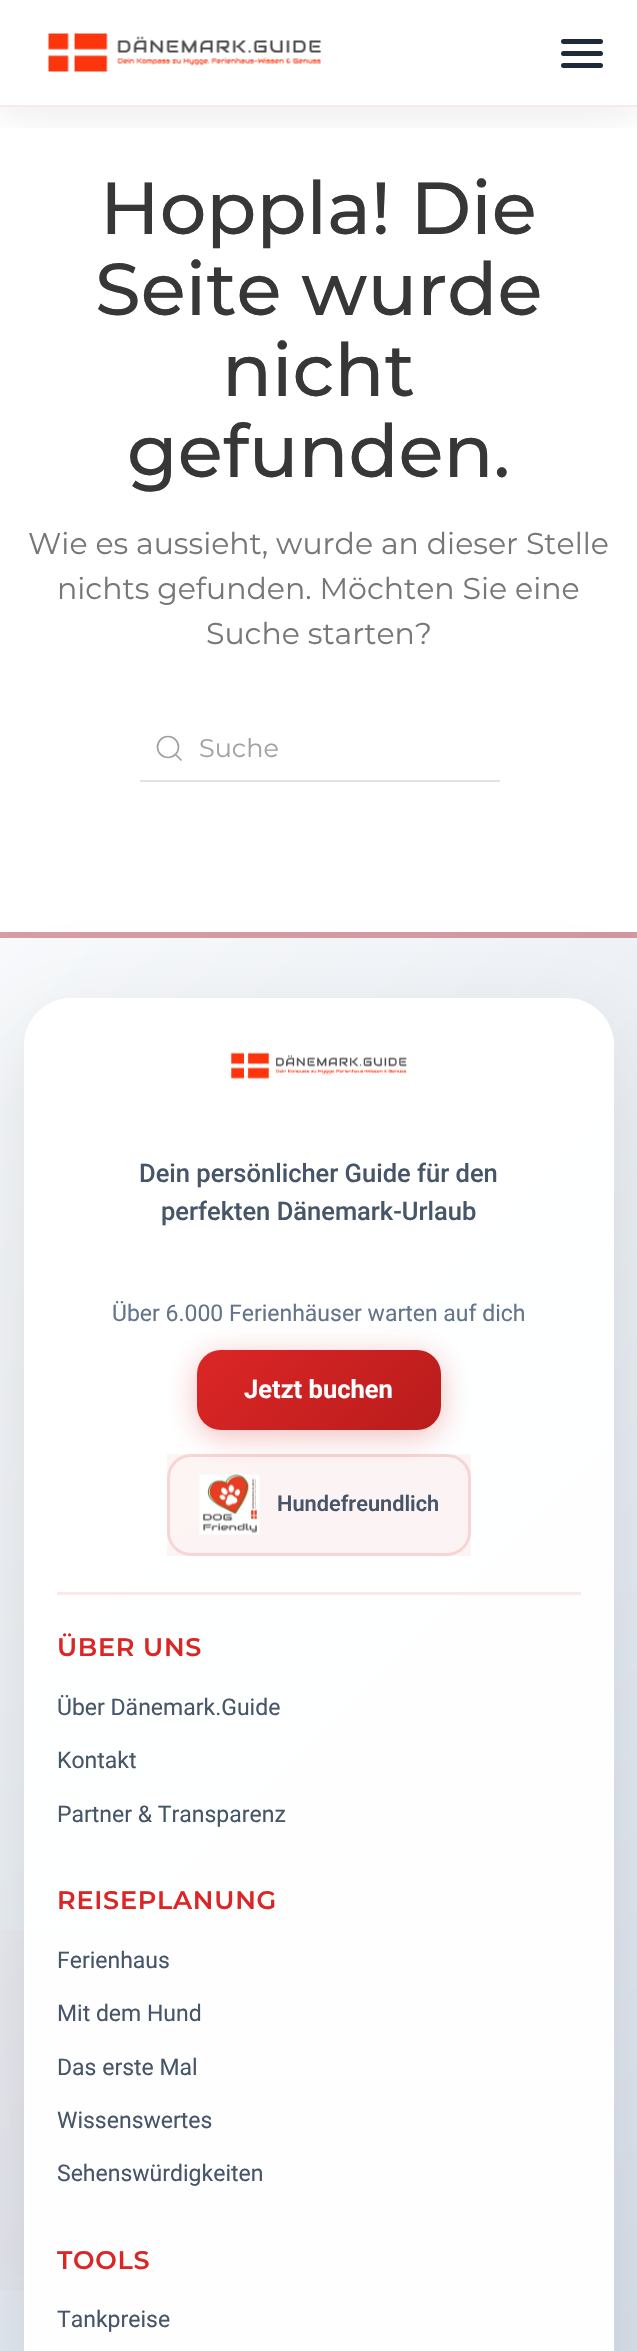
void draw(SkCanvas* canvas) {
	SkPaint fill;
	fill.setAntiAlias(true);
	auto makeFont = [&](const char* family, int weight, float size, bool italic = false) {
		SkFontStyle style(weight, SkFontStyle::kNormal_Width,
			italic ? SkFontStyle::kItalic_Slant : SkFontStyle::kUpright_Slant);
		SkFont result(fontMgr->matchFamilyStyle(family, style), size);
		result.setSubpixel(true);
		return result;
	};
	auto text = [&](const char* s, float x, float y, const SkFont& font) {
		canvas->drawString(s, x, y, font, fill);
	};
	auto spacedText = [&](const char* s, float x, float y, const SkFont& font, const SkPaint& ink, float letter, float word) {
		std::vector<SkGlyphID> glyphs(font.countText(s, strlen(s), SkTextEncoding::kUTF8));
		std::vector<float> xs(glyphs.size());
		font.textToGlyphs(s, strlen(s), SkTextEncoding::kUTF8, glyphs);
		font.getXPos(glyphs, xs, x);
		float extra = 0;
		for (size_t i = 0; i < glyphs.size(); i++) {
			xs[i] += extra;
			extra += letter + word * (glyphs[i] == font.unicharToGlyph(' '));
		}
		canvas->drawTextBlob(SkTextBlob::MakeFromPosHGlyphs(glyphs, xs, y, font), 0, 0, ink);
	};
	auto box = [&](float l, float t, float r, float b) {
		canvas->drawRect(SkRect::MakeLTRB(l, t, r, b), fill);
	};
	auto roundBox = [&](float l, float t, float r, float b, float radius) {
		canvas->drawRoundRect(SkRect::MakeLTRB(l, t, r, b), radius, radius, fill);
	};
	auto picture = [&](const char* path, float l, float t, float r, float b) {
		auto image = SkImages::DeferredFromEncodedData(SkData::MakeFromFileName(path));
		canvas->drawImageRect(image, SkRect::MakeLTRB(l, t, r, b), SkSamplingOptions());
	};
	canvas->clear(0xFFFFFFFF);
	canvas->save();
	canvas->clipRect(SkRect::MakeLTRB(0, 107, 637, 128));
	fill.setColor(0x14000000);
	fill.setMaskFilter(SkMaskFilter::MakeBlur(kNormal_SkBlurStyle, 22.5f));
	canvas->drawRect(SkRect::MakeLTRB(0, 6, 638, 113), fill);
	fill.setMaskFilter(nullptr);
	canvas->restore();
	fill.setColor(0xFFFBE9E9);
	box(0, 105, 637, 107);
	picture("image0.png", 47, 33, 322, 72);
	fill.setColor(0xFF1E293B);
	roundBox(561, 39, 603, 44, 2.5f);
	roundBox(561, 51, 603, 56, 2.5f);
	roundBox(561, 63, 603, 68, 2.5f);
	fill.setStyle(SkPaint::kStroke_Style);
	fill.setStrokeWidth(1.7f);
	fill.setColor(0xFFA1A1A1);
	canvas->drawCircle(168, 747, 10.5f, fill);
	canvas->drawPath(SkPathBuilder().moveTo(175.5f, 754.5f).lineTo(181.5f, 760.5f).close().detach(), fill);
	fill.setStyle(SkPaint::kFill_Style);
	fill.setColor(0xFFE2E2E2);
	box(140, 780, 500, 782);
	{
		const SkColor colors[] = {0xFFEEB0B1, 0xFFE0A4A9, 0xFFD198A0};
		const float stops[] = {0, 0.5f, 1};
		const SkPoint ends[] = {{-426, -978}, {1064, 511}};
		fill.setShader(SkGradientShader::MakeLinear(ends, colors, stops, 3, SkTileMode::kClamp));
		fill.setAlpha(255);
	}
	box(0, 932, 637, 938);
	{
		const SkColor colors[] = {0xFFF8FAFC, 0xFFE2E8F0, 0xFFCBD5E1};
		const float stops[] = {0, 0.5f, 1};
		const SkPoint ends[] = {{-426, 1364}, {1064, 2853}};
		fill.setShader(SkGradientShader::MakeLinear(ends, colors, stops, 3, SkTileMode::kClamp));
		fill.setAlpha(255);
	}
	box(0, 938, 637, 2351);
	{
		const SkColor colors[] = {0x08DC2626, 0x00DC2626};
		const float stops[] = {0, 0.5f};
		fill.setShader(SkGradientShader::MakeRadial({128, 2108}, 1277, colors, stops, 2, SkTileMode::kClamp));
		fill.setAlpha(255);
	}
	box(0, 1930, 307, 2291);
	canvas->save();
	canvas->clipPath(SkPathBuilder(SkPathFillType::kEvenOdd).moveTo(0, 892).lineTo(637, 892).lineTo(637, 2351).lineTo(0, 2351).close().moveTo(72, 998).lineTo(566, 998).cubicTo(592.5f, 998, 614, 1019.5f, 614, 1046).lineTo(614, 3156).cubicTo(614, 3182.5f, 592.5f, 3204, 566, 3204).lineTo(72, 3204).cubicTo(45.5f, 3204, 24, 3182.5f, 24, 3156).lineTo(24, 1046).cubicTo(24, 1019.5f, 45.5f, 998, 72, 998).close().detach(), true);
	fill.setShader(nullptr);
	fill.setColor(0x1A000000);
	fill.setMaskFilter(SkMaskFilter::MakeBlur(kNormal_SkBlurStyle, 45));
	canvas->drawRoundRect(SkRect::MakeLTRB(24, 1028, 614, 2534), 48, 48, fill);
	fill.setMaskFilter(nullptr);
	canvas->restore();
	fill.setColor(0xF2FFFFFF);
	roundBox(24, 998, 614, 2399, 48);
	fill.setStyle(SkPaint::kStroke_Style);
	fill.setStrokeWidth(3);
	fill.setColor(0xCCFFFFFF);
	canvas->drawRoundRect(SkRect::MakeLTRB(25.5f, 999.5f, 612.5f, 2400.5f), 46.5f, 46.5f, fill);
	fill.setStyle(SkPaint::kFill_Style);
	fill.setColor(0xFFFBE9E9);
	box(57, 1592, 581, 1595);
	picture("image1.png", 231, 1052, 407, 1079);
	fill.setColor(0x4DDC2626);
	fill.setMaskFilter(SkMaskFilter::MakeBlur(kNormal_SkBlurStyle, 15));
	canvas->drawRoundRect(SkRect::MakeLTRB(197, 1356, 441, 1436), 24, 24, fill);
	fill.setMaskFilter(nullptr);
	{
		const SkColor colors[] = {0xFFDC2626, 0xFFB91C1C};
		const float stops[] = {0, 1};
		const SkPoint ends[] = {{238, 1309}, {400, 1471}};
		fill.setShader(SkGradientShader::MakeLinear(ends, colors, stops, 2, SkTileMode::kClamp));
		fill.setAlpha(255);
	}
	roundBox(197, 1350, 441, 1430, 24);
	fill.setShader(nullptr);
	fill.setColor(0x0DDC2626);
	box(167, 1454, 471, 1556);
	fill.setStyle(SkPaint::kStroke_Style);
	fill.setColor(0x26DC2626);
	canvas->drawRoundRect(SkRect::MakeLTRB(168.5f, 1455.5f, 469.5f, 1554.5f), 22.5f, 22.5f, fill);
	picture("image2.png", 199, 1474, 260, 1535);
	auto font1 = makeFont("Montserrat", 100, 73.5f);
	fill.setStyle(SkPaint::kFill_Style);
	fill.setColor(0xFF373737);
	text("Hoppla! Die", 100, 234, font1);
	text("Seite wurde", 95, 315, font1);
	text("nicht", 222, 396, font1);
	text("gefunden.", 127, 477, font1);
	auto font2 = makeFont("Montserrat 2", 100, 30);
	fill.setColor(0xFF777777);
	text("Wie es aussieht, wurde an dieser Stelle", 28, 554, font2);
	text("nichts gefunden. Möchten Sie eine", 57, 599, font2);
	text("Suche starten?", 206, 644, font2);
	auto font3 = makeFont("Montserrat 2", 100, 25.5f);
	fill.setColor(0xFFA1A1A1);
	text("Suche", 199, 757, font3);
	auto font4 = makeFont("Roboto", 500, 25.5f);
	fill.setColor(0xFF475569);
	text("Dein persönlicher Guide für den", 139, 1182, font4);
	text("perfekten Dänemark-Urlaub", 161, 1220, font4);
	auto font5 = makeFont("Roboto", 400, 23);
	fill.setColor(0xFF64748B);
	text("Über 6.000 Ferienhäuser warten auf dich", 112, 1321, font5);
	auto font6 = makeFont("Roboto", 700, 25.5f);
	fill.setColor(0xFFFFFFFF);
	text("Jetzt buchen", 244, 1398, font6);
	auto font7 = makeFont("Roboto", 600, 21.75f);
	fill.setColor(0xFF475569);
	text("Hundefreundlich", 277, 1511, font7);
	auto font8 = makeFont("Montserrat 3", 100, 25.5f);
	fill.setColor(0xFFDC2626);
	spacedText("ÜBER UNS", 57, 1656, font8, fill, 0.75f, 0);
	fill.setColor(0xFF475569);
	text("Über Dänemark.Guide", 57, 1715, font5);
	text("Kontakt", 57, 1768, font5);
	text("Partner & Transparenz", 57, 1822, font5);
	fill.setColor(0xFFDC2626);
	spacedText("REISEPLANUNG", 57, 1909, font8, fill, 0.75f, 0);
	fill.setColor(0xFF475569);
	text("Ferienhaus", 57, 1968, font5);
	text("Mit dem Hund", 57, 2021, font5);
	text("Das erste Mal", 57, 2075, font5);
	text("Wissenswertes", 57, 2128, font5);
	text("Sehenswürdigkeiten", 57, 2181, font5);
	fill.setColor(0xFFDC2626);
	spacedText("TOOLS", 57, 2269, font8, fill, 0.75f, 0);
	fill.setColor(0xFF475569);
	text("Tankpreise", 57, 2327, font5);
}
